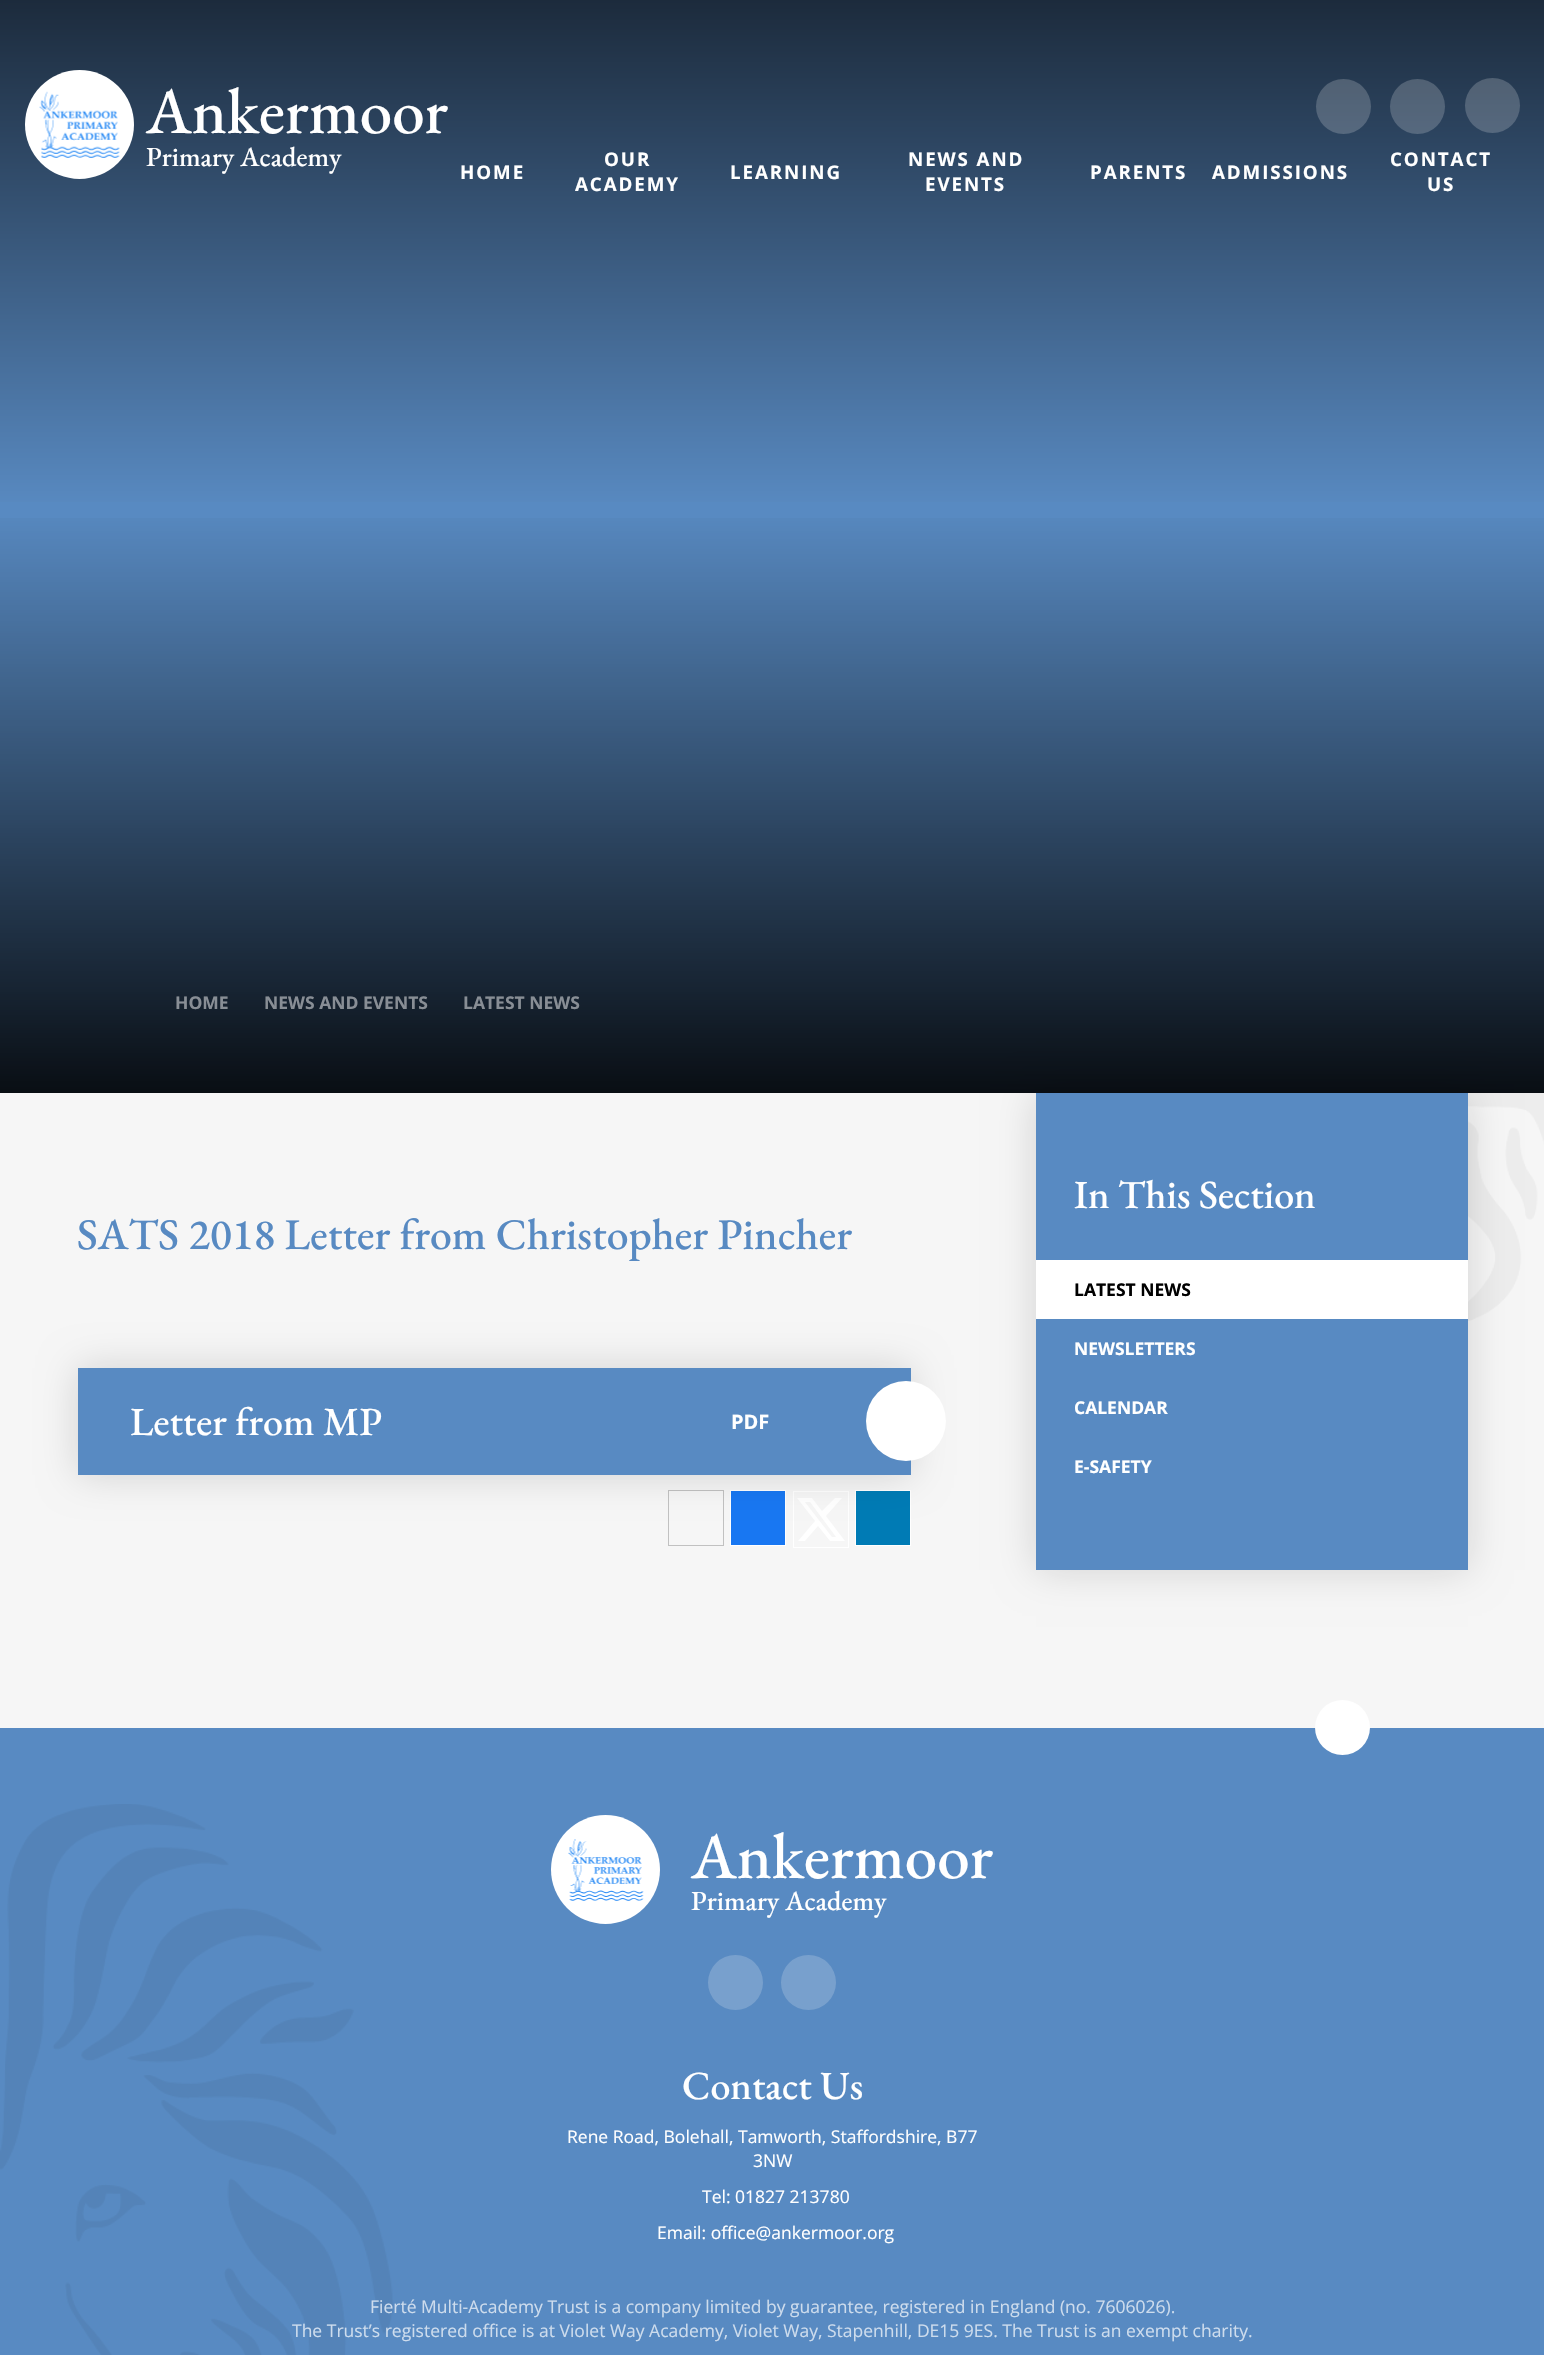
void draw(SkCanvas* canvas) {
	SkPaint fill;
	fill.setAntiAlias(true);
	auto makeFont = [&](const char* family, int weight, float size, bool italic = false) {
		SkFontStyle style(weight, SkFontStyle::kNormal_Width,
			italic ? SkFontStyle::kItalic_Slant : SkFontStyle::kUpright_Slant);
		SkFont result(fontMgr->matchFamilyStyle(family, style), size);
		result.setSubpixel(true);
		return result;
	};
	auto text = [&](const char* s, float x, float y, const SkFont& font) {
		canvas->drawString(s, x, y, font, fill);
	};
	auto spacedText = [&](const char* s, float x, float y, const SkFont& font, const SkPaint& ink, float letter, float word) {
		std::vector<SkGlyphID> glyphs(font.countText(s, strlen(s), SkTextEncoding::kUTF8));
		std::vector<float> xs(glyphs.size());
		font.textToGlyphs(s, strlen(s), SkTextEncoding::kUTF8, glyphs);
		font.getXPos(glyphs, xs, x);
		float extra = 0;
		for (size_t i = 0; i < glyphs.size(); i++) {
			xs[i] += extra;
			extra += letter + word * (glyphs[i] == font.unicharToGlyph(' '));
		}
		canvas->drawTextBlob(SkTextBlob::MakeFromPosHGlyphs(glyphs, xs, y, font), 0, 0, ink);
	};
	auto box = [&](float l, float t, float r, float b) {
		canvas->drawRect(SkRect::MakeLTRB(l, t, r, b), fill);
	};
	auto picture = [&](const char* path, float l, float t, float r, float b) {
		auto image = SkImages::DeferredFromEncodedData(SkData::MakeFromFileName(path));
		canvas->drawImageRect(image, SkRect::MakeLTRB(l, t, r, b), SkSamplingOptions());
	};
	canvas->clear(0xFF588AC2);
	{
		const SkColor colors[] = {0xFF121B26, 0xFF5889C0};
		const float stops[] = {0, 1};
		const SkPoint ends[] = {{773, -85}, {773, 504}};
		fill.setShader(SkGradientShader::MakeLinear(ends, colors, stops, 2, SkTileMode::kClamp));
		fill.setAlpha(255);
	}
	box(0, 0, 1544, 502);
	fill.setShader(nullptr);
	fill.setColor(0xFFFFFFFF);
	canvas->drawCircle(79.5f, 124.5f, 54.5f, fill);
	picture("image0.png", 39, 91, 120, 158);
	fill.setColor(0x33FAFAFA);
	canvas->drawCircle(1343.5f, 106.5f, 27.5f, fill);
	canvas->drawCircle(1417.5f, 106.5f, 27.5f, fill);
	canvas->drawCircle(1492.5f, 105.5f, 27.5f, fill);
	fill.setColor(0xFFF6F6F6);
	box(0, 1093, 1544, 1728);
	picture("image1.png", 1075, 1092, 1544, 1321);
	fill.setColor(0x26000000);
	fill.setMaskFilter(SkMaskFilter::MakeBlur(kNormal_SkBlurStyle, 19));
	canvas->drawRect(SkRect::MakeLTRB(1036, 1093, 1468, 1570), fill);
	fill.setMaskFilter(nullptr);
	{
		const SkColor colors[] = {0x00000000, 0xE6000000};
		const float stops[] = {0, 1};
		const SkPoint ends[] = {{773, 504}, {773, 1093}};
		fill.setShader(SkGradientShader::MakeLinear(ends, colors, stops, 2, SkTileMode::kClamp));
		fill.setAlpha(255);
	}
	box(0, 518, 1544, 1093);
	fill.setStyle(SkPaint::kStroke_Style);
	fill.setStrokeWidth(1);
	fill.setShader(nullptr);
	fill.setColor(0xFFC1C1C1);
	canvas->drawRect(SkRect::MakeLTRB(668.5f, 1490.5f, 723.5f, 1545.5f), fill);
	fill.setStyle(SkPaint::kFill_Style);
	fill.setColor(0xFF1877F2);
	canvas->drawRect(SkRect::MakeLTRB(730.5f, 1490.5f, 785.5f, 1545.5f), fill);
	fill.setStyle(SkPaint::kStroke_Style);
	fill.setColor(0xFFFFFFFF);
	canvas->drawRect(SkRect::MakeLTRB(730.5f, 1490.5f, 785.5f, 1545.5f), fill);
	canvas->drawRect(SkRect::MakeLTRB(793.5f, 1491.5f, 848.5f, 1547.5f), fill);
	fill.setStyle(SkPaint::kFill_Style);
	canvas->drawPath(SkPathBuilder().moveTo(835, 1498).lineTo(842, 1498).lineTo(826, 1516).lineTo(845, 1541).lineTo(830, 1541).lineTo(818, 1526).lineTo(805, 1541).lineTo(798, 1541).lineTo(815, 1521).lineTo(797, 1498).lineTo(812, 1498).lineTo(822, 1511).close().moveTo(832, 1537).lineTo(836, 1537).lineTo(810, 1502).lineTo(805, 1502).close().detach(), fill);
	fill.setColor(0xFF007BB5);
	canvas->drawRect(SkRect::MakeLTRB(855.5f, 1490.5f, 910.5f, 1545.5f), fill);
	fill.setStyle(SkPaint::kStroke_Style);
	fill.setColor(0xFFFFFFFF);
	canvas->drawRect(SkRect::MakeLTRB(855.5f, 1490.5f, 910.5f, 1545.5f), fill);
	fill.setStyle(SkPaint::kFill_Style);
	fill.setColor(0x26000000);
	fill.setMaskFilter(SkMaskFilter::MakeBlur(kNormal_SkBlurStyle, 19));
	canvas->drawRect(SkRect::MakeLTRB(78, 1368, 911, 1475), fill);
	fill.setMaskFilter(nullptr);
	fill.setColor(0xFF588AC2);
	box(78, 1368, 911, 1475);
	fill.setColor(0xFFFFFFFF);
	canvas->drawCircle(906, 1421, 40, fill);
	fill.setColor(0xFF588AC2);
	box(1036, 1093, 1468, 1570);
	fill.setColor(0xFFFFFFFF);
	box(1036, 1260, 1468, 1319);
	picture("image2.png", 0, 1804, 393, 2355);
	canvas->drawCircle(1342.5f, 1727.5f, 27.5f, fill);
	canvas->drawCircle(605.5f, 1869.5f, 54.5f, fill);
	picture("image3.png", 568, 1839, 644, 1901);
	fill.setColor(0xFF78A0CD);
	canvas->drawCircle(735.5f, 1982.5f, 27.5f, fill);
	canvas->drawCircle(808.5f, 1982.5f, 27.5f, fill);
	auto font1 = makeFont("EB Garamond", 500, 65);
	fill.setColor(0xFFFFFFFF);
	text("Ankermoor", 146, 133, font1);
	auto font2 = makeFont("EB Garamond", 500, 27.5f);
	text("Primary Academy", 146, 166, font2);
	auto font3 = makeFont("Open Sans", 700, 18.75f);
	spacedText("HOME", 460, 179, font3, fill, 1.9f, 0);
	spacedText("OUR", 604, 166, font3, fill, 1.9f, 0);
	spacedText("ACADEMY", 575, 191, font3, fill, 1.9f, 0);
	spacedText("LEARNING", 730, 179, font3, fill, 1.9f, 0);
	spacedText("NEWS AND", 908, 166, font3, fill, 1.9f, 0);
	spacedText("EVENTS", 925, 191, font3, fill, 1.9f, 0);
	spacedText("PARENTS", 1090, 179, font3, fill, 1.9f, 0);
	spacedText("ADMISSIONS", 1212, 179, font3, fill, 1.9f, 0);
	spacedText("CONTACT", 1390, 166, font3, fill, 1.9f, 0);
	spacedText("US", 1427, 191, font3, fill, 1.9f, 0);
	auto font4 = makeFont("Open Sans", 700, 17.5f);
	fill.setColor(0xFF888E95);
	text("HOME", 175, 1009, font4);
	text("NEWS AND EVENTS", 264, 1009, font4);
	text("LATEST NEWS", 463, 1009, font4);
	auto font5 = makeFont("EB Garamond", 500, 43.75f);
	fill.setColor(0xFF588AC2);
	text("SATS 2018 Letter from Christopher Pincher", 77, 1249, font5);
	auto font6 = makeFont("EB Garamond", 500, 40);
	fill.setColor(0xFFFFFFFF);
	text("Letter from MP", 130, 1435, font6);
	auto font7 = makeFont("Open Sans", 700, 20);
	text("PDF", 731, 1429, font7);
	text("In This Section", 1074, 1208, font6);
	fill.setColor(0xFF000000);
	text("LATEST NEWS", 1074, 1296, font4);
	fill.setColor(0xFFFFFFFF);
	text("NEWSLETTERS", 1074, 1355, font4);
	text("CALENDAR", 1074, 1414, font4);
	text("E-SAFETY", 1074, 1473, font4);
	text("Ankermoor", 691, 1878, font1);
	text("Primary Academy", 691, 1910, font2);
	text("Contact Us", 682, 2099, font6);
	auto font8 = makeFont("Open Sans", 400, 17.5f);
	text("Rene Road, Bolehall, Tamworth, Staffordshire, B77", 567, 2143, font8);
	text("3NW", 753, 2167, font8);
	text("Tel: 01827 213780", 702, 2203, font8);
	text("Email: office@ankermoor.org", 657, 2239, font8);
	fill.setColor(0xFFCDDCED);
	text("Fierté Multi-Academy Trust is a company limited by guarantee, registered in England (no. 7606026).", 370, 2313, font8);
	text("The Trust’s registered office is at Violet Way Academy, Violet Way, Stapenhill, DE15 9ES. The Trust is an exempt charity.", 292, 2337, font8);
}
